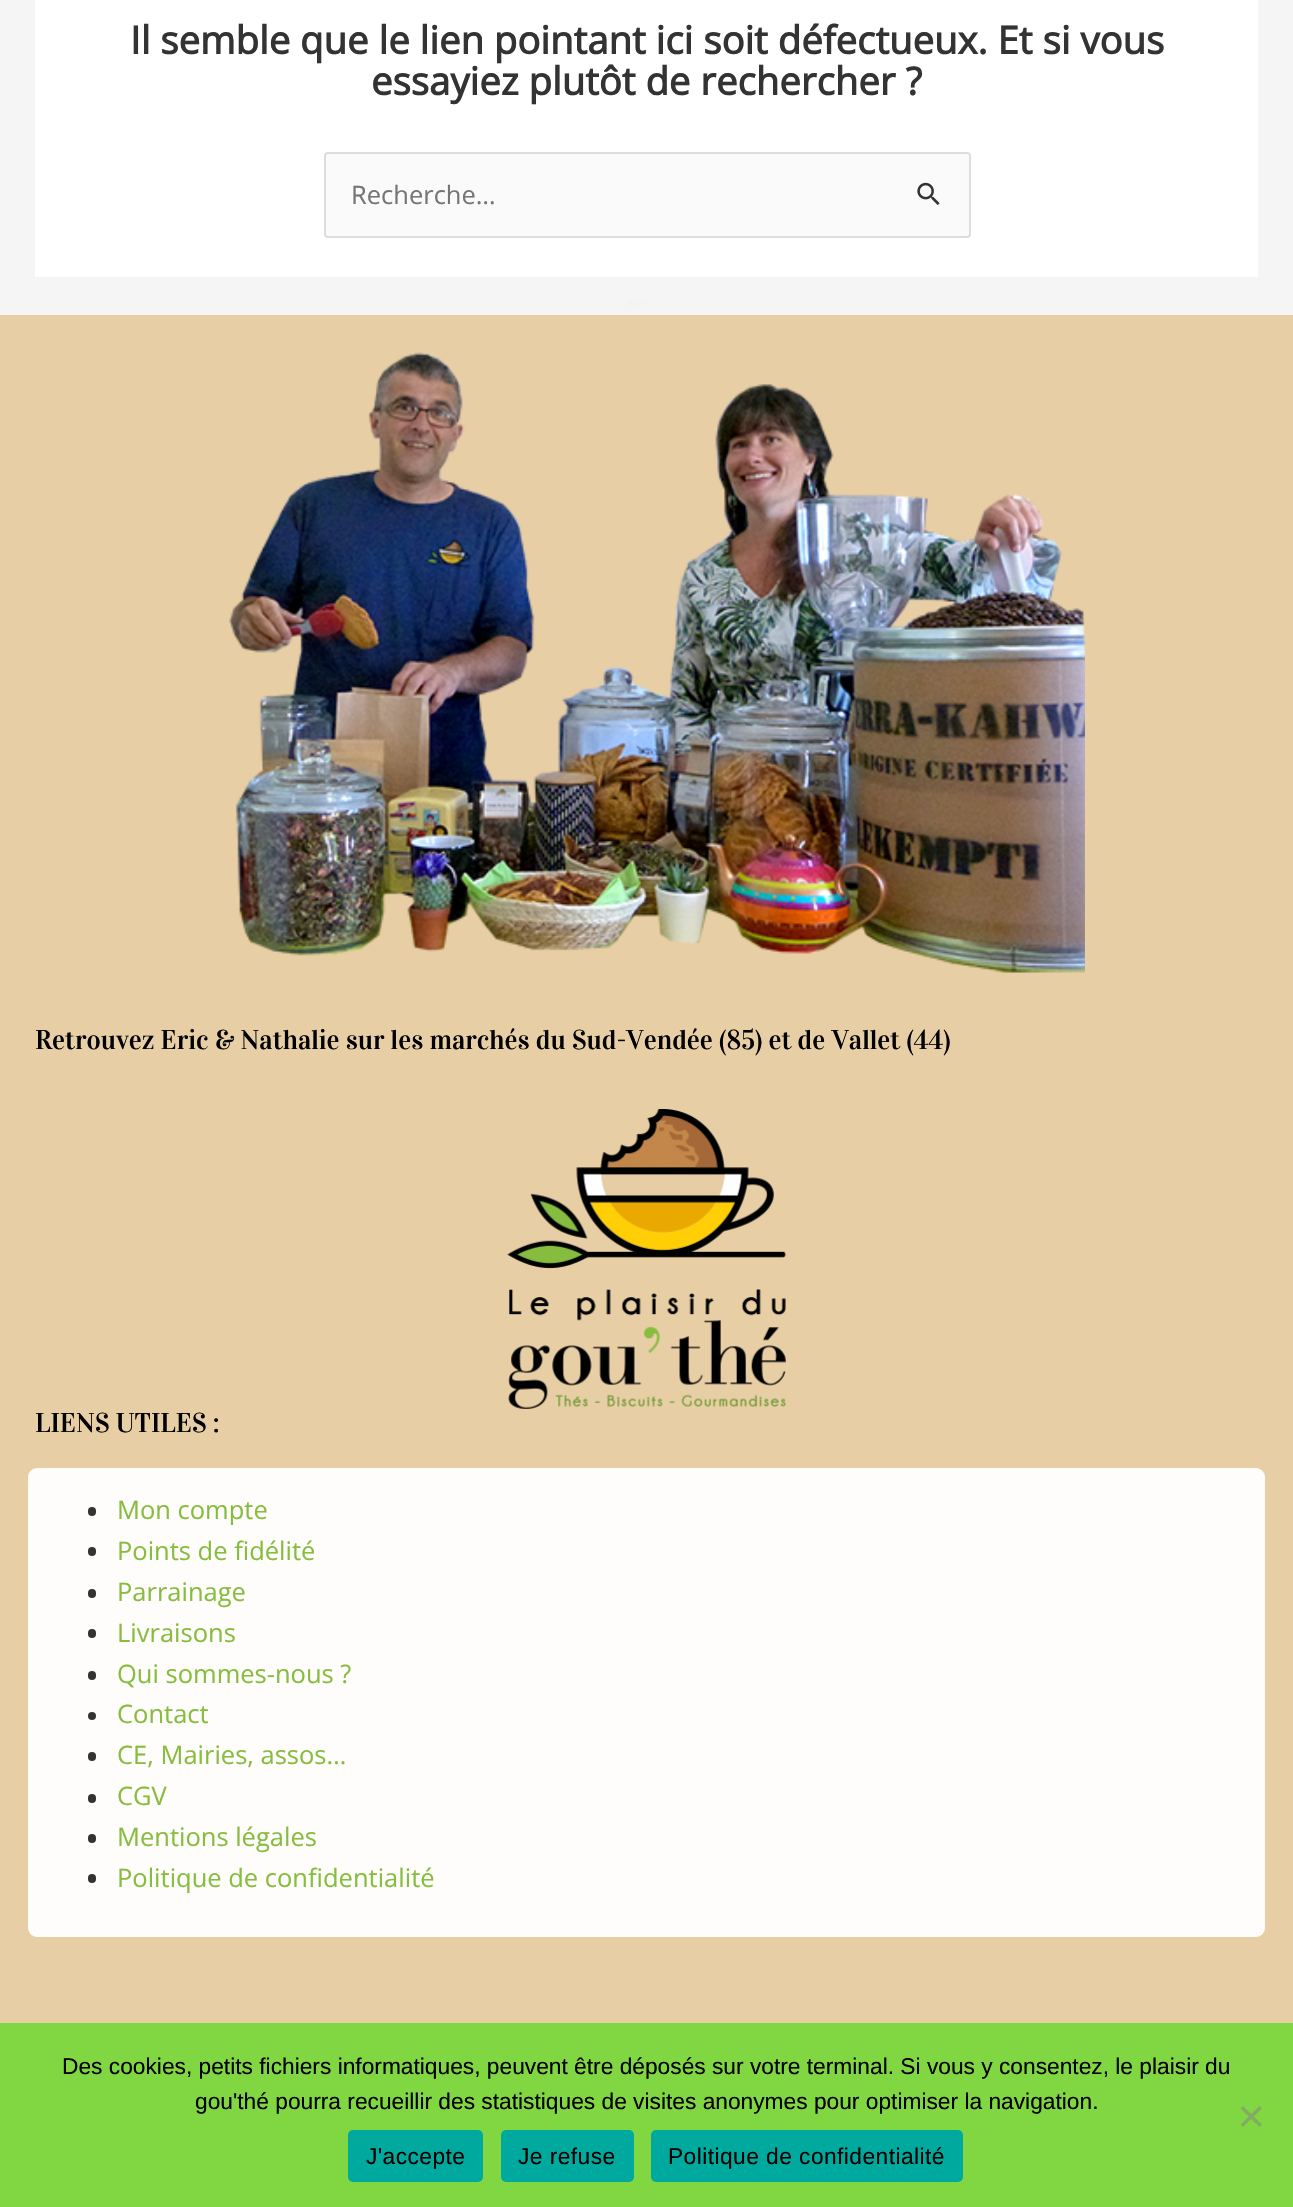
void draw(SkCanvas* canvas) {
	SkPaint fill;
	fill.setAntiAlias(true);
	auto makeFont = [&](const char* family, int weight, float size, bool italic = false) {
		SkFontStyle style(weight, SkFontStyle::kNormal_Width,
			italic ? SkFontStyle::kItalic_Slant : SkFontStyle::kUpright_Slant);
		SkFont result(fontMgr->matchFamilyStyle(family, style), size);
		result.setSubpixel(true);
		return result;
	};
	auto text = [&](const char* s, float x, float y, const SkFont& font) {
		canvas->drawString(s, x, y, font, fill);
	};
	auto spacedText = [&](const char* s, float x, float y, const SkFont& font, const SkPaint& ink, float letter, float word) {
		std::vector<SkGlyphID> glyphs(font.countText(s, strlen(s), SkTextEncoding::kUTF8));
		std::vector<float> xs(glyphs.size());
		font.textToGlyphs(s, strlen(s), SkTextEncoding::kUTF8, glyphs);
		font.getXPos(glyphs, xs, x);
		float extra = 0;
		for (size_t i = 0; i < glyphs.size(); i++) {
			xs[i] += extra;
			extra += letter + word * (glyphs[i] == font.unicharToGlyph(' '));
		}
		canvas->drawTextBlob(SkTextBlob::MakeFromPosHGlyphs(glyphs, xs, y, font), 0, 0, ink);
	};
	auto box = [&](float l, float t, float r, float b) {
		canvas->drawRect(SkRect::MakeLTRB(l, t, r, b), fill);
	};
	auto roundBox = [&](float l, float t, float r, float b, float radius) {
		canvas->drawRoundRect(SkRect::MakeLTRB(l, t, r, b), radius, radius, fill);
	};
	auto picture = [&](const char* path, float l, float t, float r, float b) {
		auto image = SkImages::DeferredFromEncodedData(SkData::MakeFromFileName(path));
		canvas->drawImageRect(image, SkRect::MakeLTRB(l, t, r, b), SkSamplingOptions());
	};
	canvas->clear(0xFFF5F5F5);
	fill.setColor(0xFFFFFFFF);
	box(35, 0, 1258, 277);
	fill.setColor(0xFFFAFAFA);
	canvas->drawRoundRect(SkRect::MakeLTRB(325, 153, 970, 237), 3, 3, fill);
	fill.setStyle(SkPaint::kStroke_Style);
	fill.setStrokeWidth(2);
	fill.setColor(0xFFDDDDDD);
	canvas->drawRoundRect(SkRect::MakeLTRB(325, 153, 970, 237), 3, 3, fill);
	picture("image0.png", 917, 182, 940, 205);
	fill.setStyle(SkPaint::kFill_Style);
	fill.setColor(0xFFE8CEA5);
	box(0, 315, 1293, 2023);
	picture("image1.png", 229, 301, 1085, 973);
	picture("image2.png", 507, 1109, 786, 1409);
	fill.setColor(0xFFFFFDFB);
	roundBox(28, 1468, 1265, 1937, 9);
	fill.setColor(0xFF333333);
	roundBox(88, 1507, 96, 1516, 4);
	roundBox(88, 1547, 96, 1556, 4);
	roundBox(88, 1589, 96, 1598, 4);
	roundBox(88, 1629, 96, 1638, 4);
	roundBox(88, 1671, 96, 1680, 4);
	canvas->drawCircle(92, 1716, 4, fill);
	roundBox(88, 1752, 96, 1761, 4);
	roundBox(88, 1794, 96, 1803, 4);
	roundBox(88, 1834, 96, 1843, 4);
	roundBox(88, 1874, 96, 1883, 4);
	fill.setColor(0xFF81D742);
	box(0, 2023, 1293, 2207);
	fill.setColor(0xFF81AC61);
	canvas->drawPath(SkPathBuilder().moveTo(1259.5f, 2106).lineTo(1262, 2108.5f).lineTo(1243, 2127).lineTo(1240.5f, 2124.5f).close().detach(), fill);
	canvas->drawPath(SkPathBuilder().moveTo(1240.5f, 2108.5f).lineTo(1243, 2106).lineTo(1262, 2124.5f).lineTo(1259.5f, 2127).close().detach(), fill);
	fill.setColor(0xFF00A99D);
	roundBox(348, 2130, 483, 2182, 5);
	roundBox(501, 2130, 634, 2182, 5);
	roundBox(651, 2130, 963, 2182, 5);
	auto font1 = makeFont("Open Sans", 700, 38.3f);
	fill.setColor(0xFF333333);
	text("Il semble que le lien pointant ici soit défectueux. Et si vous", 130, 54, font1);
	text("essayiez plutôt de rechercher ?", 371, 95, font1);
	auto font2 = makeFont("Open Sans", 400, 25.5f);
	fill.setColor(0xFF757575);
	text("Recherche…", 351, 204, font2);
	auto font3 = makeFont("Vidaloka", 400, 27.15f);
	fill.setColor(0xFF000000);
	text("Retrouvez Eric & Nathalie sur les marchés du Sud-Vendée (85) et de Vallet (44)", 35, 1049, font3);
	text("LIENS UTILES :", 35, 1432, font3);
	fill.setColor(0xFF87BD3F);
	text("Mon compte", 117, 1519, font2);
	text("Points de fidélité", 117, 1560, font2);
	text("Parrainage", 117, 1601, font2);
	text("Livraisons", 117, 1642, font2);
	text("Qui sommes-nous ?", 117, 1683, font2);
	text("Contact", 117, 1723, font2);
	text("CE, Mairies, assos…", 117, 1764, font2);
	text("CGV", 117, 1805, font2);
	text("Mentions légales", 117, 1846, font2);
	text("Politique de confidentialité", 117, 1887, font2);
	auto font4 = makeFont("Liberation Sans", 400, 22.75f);
	fill.setColor(0xFF000000);
	text("Des cookies, petits fichiers informatiques, peuvent être déposés sur votre terminal. Si vous y consentez, le plaisir du", 62, 2074, font4);
	text("gou'thé pourra recueillir des statistiques de visites anonymes pour optimiser la navigation.", 195, 2109, font4);
	spacedText("J'accepte", 366, 2164, font4, fill, 0.45f, 0);
	spacedText("Je refuse", 518, 2164, font4, fill, 0.45f, 0);
	spacedText("Politique de confidentialité", 668, 2164, font4, fill, 0.45f, 0);
}
